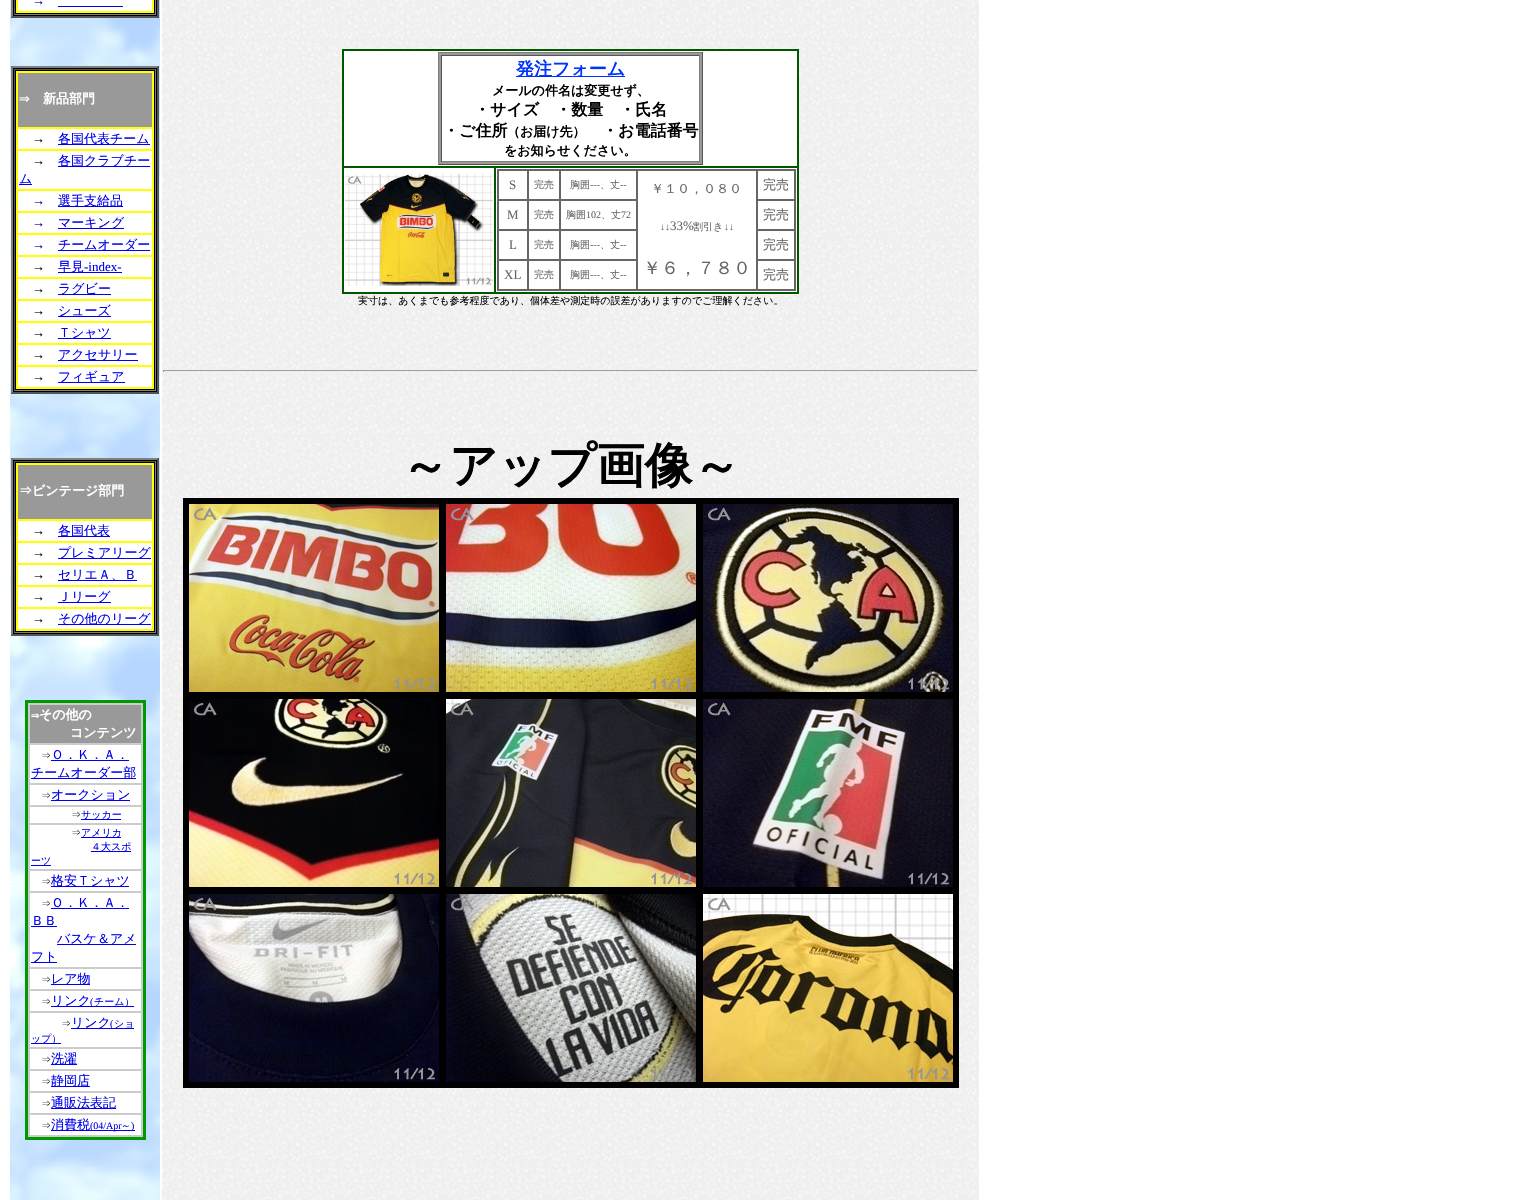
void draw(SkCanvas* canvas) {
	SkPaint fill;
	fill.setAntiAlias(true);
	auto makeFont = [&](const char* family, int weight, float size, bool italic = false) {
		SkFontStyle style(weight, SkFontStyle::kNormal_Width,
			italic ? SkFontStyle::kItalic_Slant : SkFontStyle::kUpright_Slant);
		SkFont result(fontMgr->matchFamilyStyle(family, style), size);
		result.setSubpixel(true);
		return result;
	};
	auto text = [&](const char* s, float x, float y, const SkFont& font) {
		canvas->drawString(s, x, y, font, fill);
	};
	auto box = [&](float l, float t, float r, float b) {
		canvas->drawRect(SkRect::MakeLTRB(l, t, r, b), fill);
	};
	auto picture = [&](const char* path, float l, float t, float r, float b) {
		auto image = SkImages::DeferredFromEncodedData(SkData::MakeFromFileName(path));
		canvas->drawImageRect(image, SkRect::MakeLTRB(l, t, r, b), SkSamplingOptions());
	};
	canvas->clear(0xFFFFFFFF);
	picture("image0.png", 10, 0, 160, 1200);
	fill.setColor(0xFF000000);
	box(11, 0, 159, 18);
	fill.setColor(0xFF555555);
	canvas->drawPath(SkPathBuilder().moveTo(159, -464).lineTo(159, 18).lineTo(157, 16).lineTo(157, -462).close().detach(), fill);
	canvas->drawPath(SkPathBuilder().moveTo(159, 18).lineTo(11, 18).lineTo(13, 16).lineTo(157, 16).close().detach(), fill);
	fill.setColor(0xFF808080);
	canvas->drawPath(SkPathBuilder().moveTo(11, 18).lineTo(11, -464).lineTo(13, -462).lineTo(13, 16).close().detach(), fill);
	box(155, 0, 156, 15);
	box(14, 14, 156, 15);
	fill.setColor(0xFF555555);
	box(14, 0, 15, 15);
	fill.setColor(0xFFFFFF00);
	box(16, 0, 154, 13);
	fill.setColor(0xFFFFFFFF);
	box(18, 0, 152, 11);
	fill.setColor(0xFF0000EE);
	box(58, 6, 123, 7);
	fill.setColor(0xFF000000);
	box(11, 66, 159, 394);
	fill.setColor(0xFF808080);
	canvas->drawPath(SkPathBuilder().moveTo(11, 66).lineTo(159, 66).lineTo(157, 68).lineTo(13, 68).close().detach(), fill);
	fill.setColor(0xFF555555);
	canvas->drawPath(SkPathBuilder().moveTo(159, 66).lineTo(159, 394).lineTo(157, 392).lineTo(157, 68).close().detach(), fill);
	canvas->drawPath(SkPathBuilder().moveTo(159, 394).lineTo(11, 394).lineTo(13, 392).lineTo(157, 392).close().detach(), fill);
	fill.setColor(0xFF808080);
	canvas->drawPath(SkPathBuilder().moveTo(11, 394).lineTo(11, 66).lineTo(13, 68).lineTo(13, 392).close().detach(), fill);
	fill.setColor(0xFF555555);
	box(14, 69, 156, 70);
	fill.setColor(0xFF808080);
	box(155, 69, 156, 391);
	box(14, 390, 156, 391);
	fill.setColor(0xFF555555);
	box(14, 69, 15, 391);
	fill.setColor(0xFFFFFF00);
	box(16, 71, 154, 389);
	fill.setColor(0xFF999999);
	box(18, 73, 152, 127);
	fill.setColor(0xFFFFFFFF);
	box(18, 129, 152, 149);
	fill.setColor(0xFF0000EE);
	box(58, 144, 150, 145);
	fill.setColor(0xFFFFFFFF);
	box(18, 151, 152, 189);
	fill.setColor(0xFF0000EE);
	box(58, 166, 150, 167);
	box(19, 184, 32, 185);
	fill.setColor(0xFFFFFFFF);
	box(18, 191, 152, 211);
	fill.setColor(0xFF0000EE);
	box(58, 206, 123, 207);
	fill.setColor(0xFFFFFFFF);
	box(18, 213, 152, 233);
	fill.setColor(0xFF0000EE);
	box(58, 228, 124, 229);
	fill.setColor(0xFFFFFFFF);
	box(18, 235, 152, 255);
	fill.setColor(0xFF0000EE);
	box(58, 250, 150, 251);
	fill.setColor(0xFFFFFFFF);
	box(18, 257, 152, 277);
	fill.setColor(0xFF0000EE);
	box(58, 272, 122, 273);
	fill.setColor(0xFFFFFFFF);
	box(18, 279, 152, 299);
	fill.setColor(0xFF0000EE);
	box(58, 294, 111, 295);
	fill.setColor(0xFFFFFFFF);
	box(18, 301, 152, 321);
	fill.setColor(0xFF0000EE);
	box(58, 316, 111, 317);
	fill.setColor(0xFFFFFFFF);
	box(18, 323, 152, 343);
	fill.setColor(0xFF0000EE);
	box(58, 338, 111, 339);
	fill.setColor(0xFFFFFFFF);
	box(18, 345, 152, 365);
	fill.setColor(0xFF0000EE);
	box(58, 360, 138, 361);
	fill.setColor(0xFFFFFFFF);
	box(18, 367, 152, 387);
	fill.setColor(0xFF0000EE);
	box(58, 382, 125, 383);
	fill.setColor(0xFF000000);
	box(11, 458, 159, 636);
	fill.setColor(0xFF808080);
	canvas->drawPath(SkPathBuilder().moveTo(11, 458).lineTo(159, 458).lineTo(157, 460).lineTo(13, 460).close().detach(), fill);
	fill.setColor(0xFF555555);
	canvas->drawPath(SkPathBuilder().moveTo(159, 458).lineTo(159, 636).lineTo(157, 634).lineTo(157, 460).close().detach(), fill);
	canvas->drawPath(SkPathBuilder().moveTo(159, 636).lineTo(11, 636).lineTo(13, 634).lineTo(157, 634).close().detach(), fill);
	fill.setColor(0xFF808080);
	canvas->drawPath(SkPathBuilder().moveTo(11, 636).lineTo(11, 458).lineTo(13, 460).lineTo(13, 634).close().detach(), fill);
	fill.setColor(0xFF555555);
	box(14, 461, 156, 462);
	fill.setColor(0xFF808080);
	box(155, 461, 156, 633);
	box(14, 632, 156, 633);
	fill.setColor(0xFF555555);
	box(14, 461, 15, 633);
	fill.setColor(0xFFFFFF00);
	box(16, 463, 154, 631);
	fill.setColor(0xFF999999);
	box(18, 465, 152, 519);
	fill.setColor(0xFFFFFFFF);
	box(18, 521, 152, 541);
	fill.setColor(0xFF0000EE);
	box(58, 536, 110, 537);
	fill.setColor(0xFFFFFFFF);
	box(18, 543, 152, 563);
	fill.setColor(0xFF0000EE);
	box(58, 558, 151, 559);
	fill.setColor(0xFFFFFFFF);
	box(18, 565, 152, 585);
	fill.setColor(0xFF0000EE);
	box(58, 580, 137, 581);
	fill.setColor(0xFFFFFFFF);
	box(18, 587, 152, 607);
	fill.setColor(0xFF0000EE);
	box(58, 602, 111, 603);
	fill.setColor(0xFFFFFFFF);
	box(18, 609, 152, 629);
	fill.setColor(0xFF0000EE);
	box(58, 624, 151, 625);
	fill.setColor(0xFF009900);
	box(25, 700, 146, 1140);
	fill.setColor(0xFFCCCCCC);
	box(28, 703, 143, 1137);
	fill.setColor(0xFF999999);
	box(30, 705, 141, 743);
	fill.setColor(0xFFFFFFFF);
	box(30, 745, 141, 783);
	fill.setColor(0xFF0000EE);
	box(51, 760, 129, 761);
	box(31, 778, 136, 779);
	fill.setColor(0xFFFFFFFF);
	box(30, 785, 141, 805);
	fill.setColor(0xFF0000EE);
	box(51, 800, 130, 801);
	fill.setColor(0xFFFFFFFF);
	box(30, 807, 141, 823);
	fill.setColor(0xFF0000EE);
	box(81, 819, 121, 820);
	fill.setColor(0xFFFFFFFF);
	box(30, 825, 141, 869);
	fill.setColor(0xFF0000EE);
	box(81, 837, 121, 838);
	box(91, 851, 131, 852);
	box(31, 865, 51, 866);
	fill.setColor(0xFFFFFFFF);
	box(30, 871, 141, 891);
	fill.setColor(0xFF0000EE);
	box(51, 886, 129, 887);
	fill.setColor(0xFFFFFFFF);
	box(30, 893, 141, 967);
	fill.setColor(0xFF0000EE);
	box(51, 908, 129, 909);
	box(31, 926, 57, 927);
	box(57, 944, 136, 945);
	box(31, 962, 57, 963);
	fill.setColor(0xFFFFFFFF);
	box(30, 969, 141, 989);
	fill.setColor(0xFF0000EE);
	box(51, 984, 90, 985);
	fill.setColor(0xFFFFFFFF);
	box(30, 991, 141, 1011);
	fill.setColor(0xFF0000EE);
	box(51, 1006, 134, 1007);
	fill.setColor(0xFFFFFFFF);
	box(30, 1013, 141, 1047);
	fill.setColor(0xFF0000EE);
	box(71, 1028, 134, 1029);
	box(31, 1043, 61, 1044);
	fill.setColor(0xFFFFFFFF);
	box(30, 1049, 141, 1069);
	fill.setColor(0xFF0000EE);
	box(51, 1064, 77, 1065);
	fill.setColor(0xFFFFFFFF);
	box(30, 1071, 141, 1091);
	fill.setColor(0xFF0000EE);
	box(51, 1086, 90, 1087);
	fill.setColor(0xFFFFFFFF);
	box(30, 1093, 141, 1113);
	fill.setColor(0xFF0000EE);
	box(51, 1108, 116, 1109);
	fill.setColor(0xFFFFFFFF);
	box(30, 1115, 141, 1135);
	fill.setColor(0xFF0000EE);
	box(51, 1130, 135, 1131);
	picture("image1.png", 162, 0, 979, 1200);
	fill.setColor(0xFF005700);
	box(342, 49, 799, 294);
	fill.setColor(0xFFFFFFFF);
	box(344, 51, 797, 166);
	fill.setColor(0xFF999999);
	box(439, 53, 702, 164);
	fill.setColor(0xFF808080);
	box(438, 52, 703, 53);
	fill.setColor(0xFF555555);
	box(702, 52, 703, 165);
	box(438, 164, 703, 165);
	fill.setColor(0xFF808080);
	box(438, 52, 439, 165);
	fill.setColor(0xFFFFFFFF);
	box(442, 56, 699, 161);
	fill.setColor(0xFF555555);
	box(441, 55, 700, 56);
	fill.setColor(0xFF808080);
	box(699, 55, 700, 162);
	box(441, 161, 700, 162);
	fill.setColor(0xFF555555);
	box(441, 55, 442, 162);
	fill.setColor(0xFF0033FF);
	box(516, 76, 625, 77);
	fill.setColor(0xFFFFFFFF);
	box(344, 168, 494, 292);
	picture("image2.png", 345, 174, 493, 286);
	box(496, 168, 797, 292);
	fill.setColor(0xFF666666);
	box(497, 169, 796, 291);
	fill.setColor(0xFFFFFFFF);
	box(499, 171, 527, 199);
	box(529, 171, 559, 199);
	box(561, 171, 636, 199);
	box(638, 171, 756, 289);
	box(758, 171, 794, 199);
	box(499, 201, 527, 229);
	box(529, 201, 559, 229);
	box(561, 201, 636, 229);
	box(758, 201, 794, 229);
	box(499, 231, 527, 259);
	box(529, 231, 559, 259);
	box(561, 231, 636, 259);
	box(758, 231, 794, 259);
	box(499, 261, 527, 289);
	box(529, 261, 559, 289);
	box(561, 261, 636, 289);
	box(758, 261, 794, 289);
	fill.setColor(0xFF9F9F9F);
	box(163, 370, 978, 371);
	fill.setColor(0xFFEEEEEE);
	box(977, 370, 978, 372);
	box(163, 371, 978, 372);
	fill.setColor(0xFF9F9F9F);
	box(163, 370, 164, 372);
	fill.setColor(0xFF000000);
	box(183, 498, 959, 1088);
	picture("image3.png", 189, 504, 439, 692);
	picture("image4.png", 446, 504, 696, 692);
	picture("image5.png", 703, 504, 953, 692);
	picture("image6.png", 189, 699, 439, 887);
	picture("image7.png", 446, 699, 696, 887);
	picture("image8.png", 703, 699, 953, 887);
	picture("image9.png", 189, 894, 439, 1082);
	picture("image10.png", 446, 894, 696, 1082);
	picture("image11.png", 703, 894, 953, 1082);
	auto font1 = makeFont("Liberation Serif", 400, 13);
	fill.setColor(0xFF000099);
	text("→", 32, 5, font1);
	auto font2 = makeFont("DejaVu Sans", 400, 13);
	fill.setColor(0xFFFFFFFF);
	text("⇒", 19, 103, font2);
	auto font3 = makeFont("WenQuanYi Zen Hei", 700, 13);
	text("新品部門", 43, 103, font3);
	fill.setColor(0xFF000000);
	text("→", 32, 143, font1);
	auto font4 = makeFont("WenQuanYi Zen Hei", 500, 13);
	fill.setColor(0xFF0000EE);
	text("各国代表チーム", 58, 143, font4);
	fill.setColor(0xFF000000);
	text("→", 32, 165, font1);
	fill.setColor(0xFF0000EE);
	text("各国クラブチー", 58, 165, font4);
	text("ム", 19, 183, font4);
	fill.setColor(0xFF000099);
	text("→", 32, 205, font1);
	fill.setColor(0xFF0000EE);
	text("選手支給品", 58, 205, font4);
	fill.setColor(0xFF000099);
	text("→", 32, 227, font1);
	fill.setColor(0xFF0000EE);
	text("マーキング", 58, 227, font4);
	fill.setColor(0xFF000099);
	text("→", 32, 249, font1);
	fill.setColor(0xFF0000EE);
	text("チームオーダー", 58, 249, font4);
	fill.setColor(0xFF000000);
	text("→", 32, 271, font1);
	fill.setColor(0xFF0000EE);
	text("早見", 58, 271, font4);
	text("-index-", 84, 271, font1);
	fill.setColor(0xFF000000);
	text("→", 32, 293, font1);
	fill.setColor(0xFF0000EE);
	text("ラグビー", 58, 293, font4);
	fill.setColor(0xFF000000);
	text("→", 32, 315, font1);
	fill.setColor(0xFF0000EE);
	text("シューズ", 58, 315, font4);
	fill.setColor(0xFF000000);
	text("→", 32, 337, font1);
	fill.setColor(0xFF0000EE);
	text("Ｔシャツ", 58, 337, font4);
	fill.setColor(0xFF000000);
	text("→", 32, 359, font1);
	fill.setColor(0xFF0000EE);
	text("アクセサリー", 58, 359, font4);
	fill.setColor(0xFF000000);
	text("→", 32, 381, font1);
	fill.setColor(0xFF0000EE);
	text("フィギュア", 58, 381, font4);
	fill.setColor(0xFFFFFFFF);
	text("⇒ビンテージ部門", 19, 495, font3);
	fill.setColor(0xFF000000);
	text("→", 32, 535, font1);
	fill.setColor(0xFF0000EE);
	text("各国代表", 58, 535, font4);
	fill.setColor(0xFF000000);
	text("→", 32, 557, font1);
	fill.setColor(0xFF0000EE);
	text("プレミアリーグ", 58, 557, font4);
	fill.setColor(0xFF000000);
	text("→", 32, 579, font1);
	fill.setColor(0xFF0000EE);
	text("セリエＡ、Ｂ", 58, 579, font4);
	fill.setColor(0xFF000000);
	text("→", 32, 601, font1);
	fill.setColor(0xFF0000EE);
	text("Ｊリーグ", 58, 601, font4);
	fill.setColor(0xFF000000);
	text("→", 32, 623, font1);
	fill.setColor(0xFF0000EE);
	text("その他のリーグ", 58, 623, font4);
	auto font5 = makeFont("DejaVu Sans", 700, 10);
	fill.setColor(0xFFFFFFFF);
	text("⇒", 31, 719, font5);
	text("その他の", 39, 719, font3);
	text("コンテンツ", 70, 737, font3);
	auto font6 = makeFont("WenQuanYi Zen Hei", 500, 10);
	fill.setColor(0xFF000000);
	text("⇒", 41, 759, font6);
	fill.setColor(0xFF0000EE);
	text("Ｏ．Ｋ．Ａ．", 51, 759, font4);
	text("チームオーダー部", 31, 777, font4);
	fill.setColor(0xFF000000);
	text("⇒", 41, 799, font6);
	fill.setColor(0xFF0000EE);
	text("オークション", 51, 799, font4);
	fill.setColor(0xFF000000);
	text("⇒", 71, 818, font6);
	fill.setColor(0xFF0000EE);
	text("サッカー", 81, 818, font6);
	fill.setColor(0xFF000000);
	text("⇒", 71, 836, font6);
	fill.setColor(0xFF0000EE);
	text("アメリカ", 81, 836, font6);
	text("４大スポ", 91, 850, font6);
	text("ーツ", 31, 864, font6);
	fill.setColor(0xFF000000);
	text("⇒", 41, 885, font6);
	fill.setColor(0xFF0000EE);
	text("格安Ｔシャツ", 51, 885, font4);
	fill.setColor(0xFF000000);
	text("⇒", 41, 907, font6);
	fill.setColor(0xFF0000EE);
	text("Ｏ．Ｋ．Ａ．", 51, 907, font4);
	text("ＢＢ", 31, 925, font4);
	text("バスケ＆アメ", 57, 943, font4);
	text("フト", 31, 961, font4);
	fill.setColor(0xFF000000);
	text("⇒", 41, 983, font6);
	fill.setColor(0xFF0000EE);
	text("レア物", 51, 983, font4);
	fill.setColor(0xFF000000);
	text("⇒", 41, 1005, font6);
	fill.setColor(0xFF0000EE);
	text("リンク", 51, 1005, font4);
	auto font7 = makeFont("Liberation Serif", 400, 10);
	text("(", 90, 1005, font7);
	text("チーム）", 94, 1005, font6);
	fill.setColor(0xFF000000);
	text("⇒", 61, 1027, font6);
	fill.setColor(0xFF0000EE);
	text("リンク", 71, 1027, font4);
	text("(", 110, 1027, font7);
	text("ショ", 114, 1027, font6);
	text("ップ）", 31, 1042, font6);
	fill.setColor(0xFF000000);
	text("⇒", 41, 1063, font6);
	fill.setColor(0xFF0000EE);
	text("洗濯", 51, 1063, font4);
	fill.setColor(0xFF000000);
	text("⇒", 41, 1085, font6);
	fill.setColor(0xFF0000EE);
	text("静岡店", 51, 1085, font4);
	fill.setColor(0xFF000000);
	text("⇒", 41, 1107, font6);
	fill.setColor(0xFF0000EE);
	text("通販法表記", 51, 1107, font4);
	fill.setColor(0xFF000000);
	text("⇒", 41, 1129, font6);
	fill.setColor(0xFF0000EE);
	text("消費税", 51, 1129, font4);
	text("(04/Apr", 90, 1129, font7);
	text("～", 121, 1129, font6);
	text(")", 131, 1129, font7);
	auto font8 = makeFont("WenQuanYi Zen Hei", 700, 18);
	fill.setColor(0xFF0033FF);
	text("発注フォーム", 516, 75, font8);
	fill.setColor(0xFF000000);
	text("メールの件名は変更せず、", 492, 95, font3);
	auto font9 = makeFont("WenQuanYi Zen Hei", 700, 16);
	text("・サイズ　・数量　・氏名", 474, 115, font9);
	text("・ご住所", 443, 136, font9);
	text("（お届け先）", 507, 136, font3);
	text("・お電話番号", 602, 136, font9);
	text("をお知らせください。", 504, 155, font3);
	fill.setColor(0xFF666666);
	text("S", 509, 189, font1);
	text("完売", 534, 188, font6);
	text("胸囲", 570, 188, font6);
	text("---", 590, 188, font7);
	text("、丈", 600, 188, font6);
	text("--", 620, 188, font7);
	text("￥１０，０８０", 651, 193, font4);
	text("↓↓", 660, 230, font7);
	text("33%", 670, 230, font1);
	text("割引き", 693, 230, font6);
	text("↓↓", 724, 230, font7);
	auto font10 = makeFont("WenQuanYi Zen Hei", 500, 18);
	text("￥６，７８０", 643, 274, font10);
	text("完売", 763, 189, font4);
	text("M", 507, 219, font1);
	text("完売", 534, 218, font6);
	text("胸囲", 566, 218, font6);
	text("102", 586, 218, font7);
	text("、丈", 601, 218, font6);
	text("72", 621, 218, font7);
	text("完売", 763, 219, font4);
	text("L", 509, 249, font1);
	text("完売", 534, 248, font6);
	text("胸囲", 570, 248, font6);
	text("---", 590, 248, font7);
	text("、丈", 600, 248, font6);
	text("--", 620, 248, font7);
	text("完売", 763, 249, font4);
	text("XL", 504, 279, font1);
	text("完売", 534, 278, font6);
	text("胸囲", 570, 278, font6);
	text("---", 590, 278, font7);
	text("、丈", 600, 278, font6);
	text("--", 620, 278, font7);
	text("完売", 763, 279, font4);
	fill.setColor(0xFF000000);
	text("実寸は、あくまでも参考程度であり、個体差や測定時の誤差がありますのでご理解ください。", 358, 304, font6);
	auto font11 = makeFont("WenQuanYi Zen Hei", 700, 48);
	text("～アップ画像～", 401, 482, font11);
}
